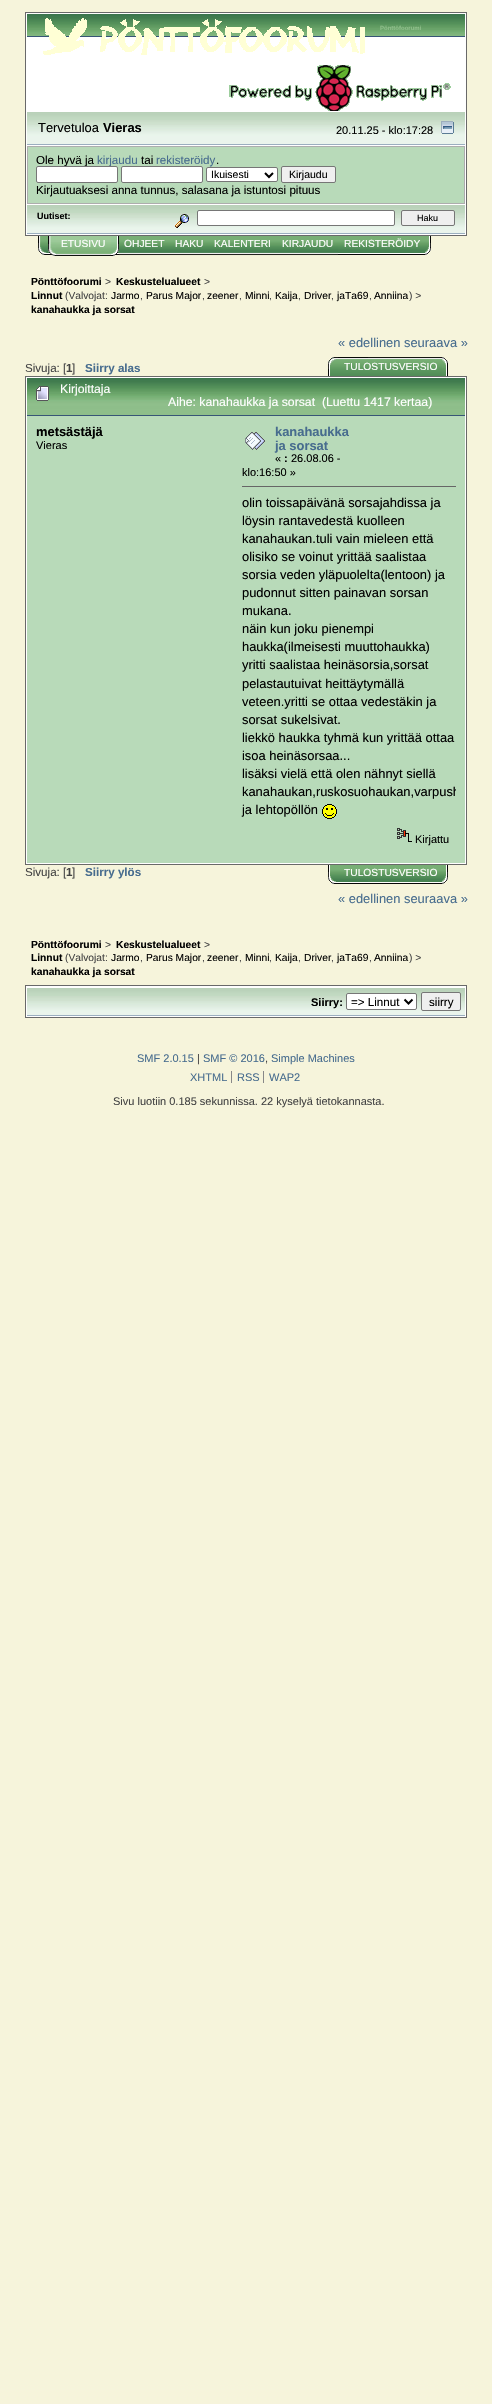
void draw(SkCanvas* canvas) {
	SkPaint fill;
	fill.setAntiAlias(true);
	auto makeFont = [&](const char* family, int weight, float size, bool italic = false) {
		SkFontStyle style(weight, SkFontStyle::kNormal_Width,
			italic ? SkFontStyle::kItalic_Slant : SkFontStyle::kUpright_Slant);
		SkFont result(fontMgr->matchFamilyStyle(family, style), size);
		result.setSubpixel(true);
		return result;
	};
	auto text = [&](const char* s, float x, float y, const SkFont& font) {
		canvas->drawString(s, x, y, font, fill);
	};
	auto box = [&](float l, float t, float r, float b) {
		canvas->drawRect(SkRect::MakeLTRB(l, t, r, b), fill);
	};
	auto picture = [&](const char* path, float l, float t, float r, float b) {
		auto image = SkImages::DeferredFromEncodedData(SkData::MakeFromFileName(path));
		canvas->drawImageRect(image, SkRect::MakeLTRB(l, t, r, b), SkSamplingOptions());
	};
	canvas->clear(0xFFF6F4DB);
	fill.setColor(0xFFFFFFFF);
	canvas->drawRect(SkRect::MakeLTRB(25.5f, 12.5f, 466.5f, 235.5f), fill);
	fill.setStyle(SkPaint::kStroke_Style);
	fill.setStrokeWidth(1);
	fill.setColor(0xFF696969);
	canvas->drawRect(SkRect::MakeLTRB(25.5f, 12.5f, 466.5f, 235.5f), fill);
	picture("image0.png", 27, 14, 465, 36);
	fill.setStyle(SkPaint::kFill_Style);
	fill.setColor(0xFF375576);
	box(27, 36, 465, 37);
	picture("image1.png", 43, 18, 365, 55);
	picture("image2.png", 229, 65, 451, 111);
	picture("image3.png", 27, 112, 465, 144);
	fill.setColor(0xFF9BAEBF);
	box(27, 144, 465, 145);
	picture("image4.png", 441, 121, 454, 134);
	fill.setColor(0xFFADADAD);
	box(27, 146, 465, 204);
	fill.setColor(0xFFB8DAB9);
	box(28, 147, 464, 203);
	fill.setColor(0xFFFFFFFF);
	canvas->drawRoundRect(SkRect::MakeLTRB(206.5f, 167.5f, 277.5f, 181.5f), 1.5f, 1.5f, fill);
	fill.setStyle(SkPaint::kStroke_Style);
	fill.setColor(0xFF767676);
	canvas->drawRoundRect(SkRect::MakeLTRB(206.5f, 167.5f, 277.5f, 181.5f), 1.5f, 1.5f, fill);
	fill.setStrokeWidth(2);
	fill.setColor(0xFF000000);
	canvas->drawPath(SkPathBuilder().moveTo(265, 173).lineTo(269, 177).lineTo(273, 173).detach(), fill);
	fill.setStyle(SkPaint::kFill_Style);
	fill.setColor(0xFFEFEFEF);
	canvas->drawRoundRect(SkRect::MakeLTRB(281.5f, 166.5f, 335.5f, 182.5f), 1.5f, 1.5f, fill);
	fill.setStyle(SkPaint::kStroke_Style);
	fill.setStrokeWidth(1);
	fill.setColor(0xFF767676);
	canvas->drawRoundRect(SkRect::MakeLTRB(281.5f, 166.5f, 335.5f, 182.5f), 1.5f, 1.5f, fill);
	picture("image5.png", 27, 205, 465, 233);
	fill.setStyle(SkPaint::kFill_Style);
	fill.setColor(0xFF9BAEBF);
	box(27, 233, 465, 234);
	picture("image6.png", 175, 214, 189, 228);
	fill.setColor(0xFFFFFFFF);
	canvas->drawRoundRect(SkRect::MakeLTRB(197.5f, 210.5f, 394.5f, 225.5f), 1.5f, 1.5f, fill);
	fill.setStyle(SkPaint::kStroke_Style);
	fill.setColor(0xFF767676);
	canvas->drawRoundRect(SkRect::MakeLTRB(197.5f, 210.5f, 394.5f, 225.5f), 1.5f, 1.5f, fill);
	fill.setStyle(SkPaint::kFill_Style);
	fill.setColor(0xFFEFEFEF);
	canvas->drawRoundRect(SkRect::MakeLTRB(401.5f, 210.5f, 454.5f, 225.5f), 1.5f, 1.5f, fill);
	fill.setStyle(SkPaint::kStroke_Style);
	fill.setColor(0xFF767676);
	canvas->drawRoundRect(SkRect::MakeLTRB(401.5f, 210.5f, 454.5f, 225.5f), 1.5f, 1.5f, fill);
	picture("image7.png", 38, 236, 48, 255);
	picture("image8.png", 111, 236, 119, 256);
	picture("image9.png", 48, 236, 56, 256);
	picture("image10.png", 56, 236, 111, 256);
	picture("image11.png", 119, 236, 170, 256);
	picture("image12.png", 170, 236, 209, 256);
	picture("image13.png", 209, 236, 276, 256);
	picture("image14.png", 276, 236, 338, 256);
	picture("image15.png", 338, 236, 431, 255);
	picture("image16.png", 328, 357, 368, 376);
	picture("image17.png", 338, 357, 448, 376);
	fill.setStyle(SkPaint::kFill_Style);
	fill.setColor(0xFFFFFFFF);
	canvas->drawRect(SkRect::MakeLTRB(25.5f, 376.5f, 466.5f, 864.5f), fill);
	fill.setStyle(SkPaint::kStroke_Style);
	fill.setColor(0xFF696969);
	canvas->drawRect(SkRect::MakeLTRB(25.5f, 376.5f, 466.5f, 864.5f), fill);
	picture("image18.png", 27, 378, 465, 415);
	fill.setStyle(SkPaint::kFill_Style);
	fill.setColor(0xFF375576);
	box(27, 415, 465, 416);
	picture("image19.png", 36, 386, 49, 401);
	fill.setColor(0xFFB8DAB9);
	box(27, 416, 465, 863);
	picture("image20.png", 245, 432, 265, 450);
	fill.setColor(0xFF666666);
	box(242, 486, 456, 487);
	picture("image21.png", 322, 804, 337, 819);
	picture("image22.png", 397, 828, 412, 842);
	picture("image23.png", 328, 865, 368, 884);
	picture("image24.png", 368, 865, 448, 884);
	fill.setColor(0xFFFFFFFF);
	canvas->drawRect(SkRect::MakeLTRB(25.5f, 985.5f, 466.5f, 1017.5f), fill);
	fill.setStyle(SkPaint::kStroke_Style);
	fill.setColor(0xFF696969);
	canvas->drawRect(SkRect::MakeLTRB(25.5f, 985.5f, 466.5f, 1017.5f), fill);
	picture("image25.png", 27, 988, 465, 1015);
	fill.setStyle(SkPaint::kFill_Style);
	fill.setColor(0xFF9BAEBF);
	box(27, 1015, 465, 1016);
	fill.setColor(0xFFFFFFFF);
	canvas->drawRoundRect(SkRect::MakeLTRB(346.5f, 993.5f, 416.5f, 1009.5f), 1.5f, 1.5f, fill);
	fill.setStyle(SkPaint::kStroke_Style);
	fill.setColor(0xFF767676);
	canvas->drawRoundRect(SkRect::MakeLTRB(346.5f, 993.5f, 416.5f, 1009.5f), 1.5f, 1.5f, fill);
	fill.setStrokeWidth(2);
	fill.setColor(0xFF000000);
	canvas->drawPath(SkPathBuilder().moveTo(404.5f, 999.5f).lineTo(408.5f, 1003.5f).lineTo(412.5f, 999.5f).detach(), fill);
	fill.setStyle(SkPaint::kFill_Style);
	fill.setColor(0xFFEFEFEF);
	canvas->drawRoundRect(SkRect::MakeLTRB(421.5f, 992.5f, 460.5f, 1010.5f), 1.5f, 1.5f, fill);
	fill.setStyle(SkPaint::kStroke_Style);
	fill.setStrokeWidth(1);
	fill.setColor(0xFF767676);
	canvas->drawRoundRect(SkRect::MakeLTRB(421.5f, 992.5f, 460.5f, 1010.5f), 1.5f, 1.5f, fill);
	fill.setStyle(SkPaint::kFill_Style);
	fill.setColor(0xFF888888);
	box(231, 1071, 232, 1083);
	box(263, 1071, 264, 1083);
	auto font1 = makeFont("Liberation Sans", 700, 6);
	fill.setColor(0xFF8EBE8A);
	text("Pönttöfoorumi", 380, 30, font1);
	auto font2 = makeFont("Liberation Sans", 400, 12.9f);
	fill.setColor(0xFF000000);
	text("Tervetuloa", 38, 132, font2);
	auto font3 = makeFont("Liberation Sans", 700, 12.9f);
	text("Vieras", 103, 132, font3);
	auto font4 = makeFont("Liberation Sans", 400, 11);
	text("20.11.25 - klo:17:28", 336, 134, font4);
	auto font5 = makeFont("Liberation Sans", 400, 11.6f);
	text("Ole hyvä ja", 36, 164, font5);
	fill.setColor(0xFF476C8E);
	text("kirjaudu", 97, 164, font5);
	fill.setColor(0xFF000000);
	text("tai", 141, 164, font5);
	fill.setColor(0xFF476C8E);
	text("rekisteröidy", 156, 164, font5);
	fill.setColor(0xFF000000);
	text(".", 216, 164, font5);
	fill.setColor(0xFFFFFFFF);
	canvas->drawRoundRect(SkRect::MakeLTRB(36.5f, 166.5f, 117.5f, 182.5f), 1.5f, 1.5f, fill);
	fill.setStyle(SkPaint::kStroke_Style);
	fill.setColor(0xFF767676);
	canvas->drawRoundRect(SkRect::MakeLTRB(36.5f, 166.5f, 117.5f, 182.5f), 1.5f, 1.5f, fill);
	fill.setStyle(SkPaint::kFill_Style);
	fill.setColor(0xFFFFFFFF);
	canvas->drawRoundRect(SkRect::MakeLTRB(121.5f, 166.5f, 202.5f, 182.5f), 1.5f, 1.5f, fill);
	fill.setStyle(SkPaint::kStroke_Style);
	fill.setColor(0xFF767676);
	canvas->drawRoundRect(SkRect::MakeLTRB(121.5f, 166.5f, 202.5f, 182.5f), 1.5f, 1.5f, fill);
	auto font6 = makeFont("Liberation Sans", 400, 10.5f);
	fill.setStyle(SkPaint::kFill_Style);
	fill.setColor(0xFF000000);
	text("Ikuisesti", 211, 178, font6);
	text("Kirjaudu", 289, 178, font6);
	text("Kirjautuaksesi anna tunnus, salasana ja istuntosi pituus", 36, 194, font5);
	auto font7 = makeFont("Liberation Sans", 700, 9);
	text("Uutiset:", 37, 219, font7);
	auto font8 = makeFont("Liberation Sans", 400, 9);
	text("Haku", 417, 221, font8);
	auto font9 = makeFont("Liberation Sans", 400, 10.25f);
	fill.setColor(0xFFFFFFFF);
	text("ETUSIVU", 61, 247, font9);
	text("OHJEET", 124, 247, font9);
	text("HAKU", 175, 247, font9);
	text("KALENTERI", 214, 247, font9);
	text("KIRJAUDU", 282, 247, font9);
	text("REKISTERÖIDY", 344, 247, font9);
	auto font10 = makeFont("Liberation Sans", 700, 10.25f);
	fill.setColor(0xFF000000);
	text("Pönttöfoorumi", 31, 285, font10);
	fill.setColor(0xFF444444);
	text(">", 105, 285, font9);
	fill.setColor(0xFF000000);
	text("Keskustelualueet", 116, 285, font10);
	fill.setColor(0xFF444444);
	text(">", 204, 285, font9);
	fill.setColor(0xFF000000);
	text("Linnut", 31, 299, font10);
	fill.setColor(0xFF444444);
	text("(Valvojat:", 65, 299, font9);
	fill.setColor(0xFF000000);
	text("Jarmo", 111, 299, font9);
	fill.setColor(0xFF444444);
	text(",", 140, 299, font9);
	fill.setColor(0xFF000000);
	text("Parus Major", 146, 299, font9);
	fill.setColor(0xFF444444);
	text(",", 202, 299, font9);
	fill.setColor(0xFF000000);
	text("zeener", 207, 299, font9);
	fill.setColor(0xFF444444);
	text(",", 239, 299, font9);
	fill.setColor(0xFF000000);
	text("Minni", 245, 299, font9);
	fill.setColor(0xFF444444);
	text(",", 269, 299, font9);
	fill.setColor(0xFF000000);
	text("Kaija", 275, 299, font9);
	text("Driver", 304, 299, font9);
	text("jaTa69", 337, 299, font9);
	text("Anniina", 374, 299, font9);
	fill.setColor(0xFF444444);
	text(") >", 409, 299, font9);
	text(",", 298, 299, font9);
	text(",", 331, 299, font9);
	text(",", 369, 299, font9);
	fill.setColor(0xFF000000);
	text("kanahaukka ja sorsat", 31, 313, font10);
	fill.setColor(0xFF476C8E);
	text("« edellinen seuraava »", 338, 347, font2);
	fill.setColor(0xFF444444);
	text("Sivuja: [", 25, 372, font5);
	auto font11 = makeFont("Liberation Sans", 700, 11.6f);
	text("1", 66, 372, font11);
	text("]", 72, 372, font5);
	fill.setColor(0xFF476C8E);
	text("Siirry alas", 85, 372, font11);
	fill.setColor(0xFFFFFFFF);
	text("TULOSTUSVERSIO", 344, 370, font9);
	auto font12 = makeFont("Liberation Sans", 400, 12.25f);
	text("Kirjoittaja", 60, 393, font12);
	text("Aihe: kanahaukka ja sorsat  (Luettu 1417 kertaa)", 168, 406, font12);
	fill.setColor(0xFF000000);
	text("metsästäjä", 36, 436, font3);
	text("Vieras", 36, 449, font4);
	fill.setColor(0xFF476C8E);
	text("kanahaukka", 275, 436, font3);
	text("ja sorsat", 275, 450, font3);
	fill.setColor(0xFF000000);
	text("«", 275, 462, font4);
	auto font13 = makeFont("Liberation Sans", 700, 11);
	text(":", 284, 462, font13);
	text("26.08.06 -", 291, 462, font4);
	text("klo:16:50 »", 242, 476, font4);
	text("olin toissapäivänä sorsajahdissa ja", 242, 507, font2);
	text("löysin rantavedestä kuolleen", 242, 525, font2);
	text("kanahaukan.tuli vain mieleen että", 242, 543, font2);
	text("olisiko se voinut yrittää saalistaa", 242, 561, font2);
	text("sorsia veden yläpuolelta(lentoon) ja", 242, 579, font2);
	text("pudonnut sitten painavan sorsan", 242, 597, font2);
	text("mukana.", 242, 615, font2);
	text("näin kun joku pienempi", 242, 633, font2);
	text("haukka(ilmeisesti muuttohaukka)", 242, 651, font2);
	text("yritti saalistaa heinäsorsia,sorsat", 242, 669, font2);
	text("pelastautuivat heittäytymällä", 242, 688, font2);
	text("veteen.yritti se ottaa vedestäkin ja", 242, 706, font2);
	text("sorsat sukelsivat.", 242, 724, font2);
	text("liekkö haukka tyhmä kun yrittää ottaa", 242, 742, font2);
	text("isoa heinäsorsaa...", 242, 760, font2);
	text("lisäksi vielä että olen nähnyt siellä", 242, 778, font2);
	canvas->save();
	canvas->clipRect(SkRect::MakeLTRB(242, 480, 456, 819));
	text("kanahaukan,ruskosuohaukan,varpush", 242, 796, font2);
	canvas->restore();
	text("ja lehtopöllön", 242, 814, font2);
	text("Kirjattu", 415, 843, font4);
	fill.setColor(0xFF444444);
	text("Sivuja: [", 25, 876, font5);
	text("1", 66, 876, font11);
	text("]", 72, 876, font5);
	fill.setColor(0xFF476C8E);
	text("Siirry ylös", 85, 876, font11);
	fill.setColor(0xFFFFFFFF);
	text("TULOSTUSVERSIO", 344, 876, font9);
	fill.setColor(0xFF476C8E);
	text("« edellinen seuraava »", 338, 903, font2);
	fill.setColor(0xFF000000);
	text("Pönttöfoorumi", 31, 948, font10);
	fill.setColor(0xFF444444);
	text(">", 105, 948, font9);
	fill.setColor(0xFF000000);
	text("Keskustelualueet", 116, 948, font10);
	fill.setColor(0xFF444444);
	text(">", 204, 948, font9);
	fill.setColor(0xFF000000);
	text("Linnut", 31, 961, font10);
	fill.setColor(0xFF444444);
	text("(Valvojat:", 65, 961, font9);
	fill.setColor(0xFF000000);
	text("Jarmo", 111, 961, font9);
	fill.setColor(0xFF444444);
	text(",", 140, 961, font9);
	fill.setColor(0xFF000000);
	text("Parus Major", 146, 961, font9);
	fill.setColor(0xFF444444);
	text(",", 202, 961, font9);
	fill.setColor(0xFF000000);
	text("zeener", 207, 961, font9);
	fill.setColor(0xFF444444);
	text(",", 239, 961, font9);
	fill.setColor(0xFF000000);
	text("Minni", 245, 961, font9);
	fill.setColor(0xFF444444);
	text(",", 269, 961, font9);
	fill.setColor(0xFF000000);
	text("Kaija", 275, 961, font9);
	text("Driver", 304, 961, font9);
	text("jaTa69", 337, 961, font9);
	text("Anniina", 374, 961, font9);
	fill.setColor(0xFF444444);
	text(") >", 409, 961, font9);
	text(",", 298, 961, font9);
	text(",", 331, 961, font9);
	text(",", 369, 961, font9);
	fill.setColor(0xFF000000);
	text("kanahaukka ja sorsat", 31, 975, font10);
	text("Siirry:", 311, 1006, font13);
	text("=> Linnut", 351, 1006, font5);
	text("siirry", 429, 1006, font5);
	fill.setColor(0xFF476C8E);
	text("SMF 2.0.15", 137, 1062, font4);
	fill.setColor(0xFF444444);
	text("|", 197, 1062, font4);
	fill.setColor(0xFF476C8E);
	text("SMF © 2016", 203, 1062, font4);
	fill.setColor(0xFF444444);
	text(",", 265, 1062, font4);
	fill.setColor(0xFF476C8E);
	text("Simple Machines", 271, 1062, font4);
	text("XHTML", 190, 1081, font4);
	text("RSS", 237, 1081, font4);
	text("WAP2", 269, 1081, font4);
	fill.setColor(0xFF444444);
	text("Sivu luotiin 0.185 sekunnissa. 22 kyselyä tietokannasta.", 113, 1105, font4);
}
